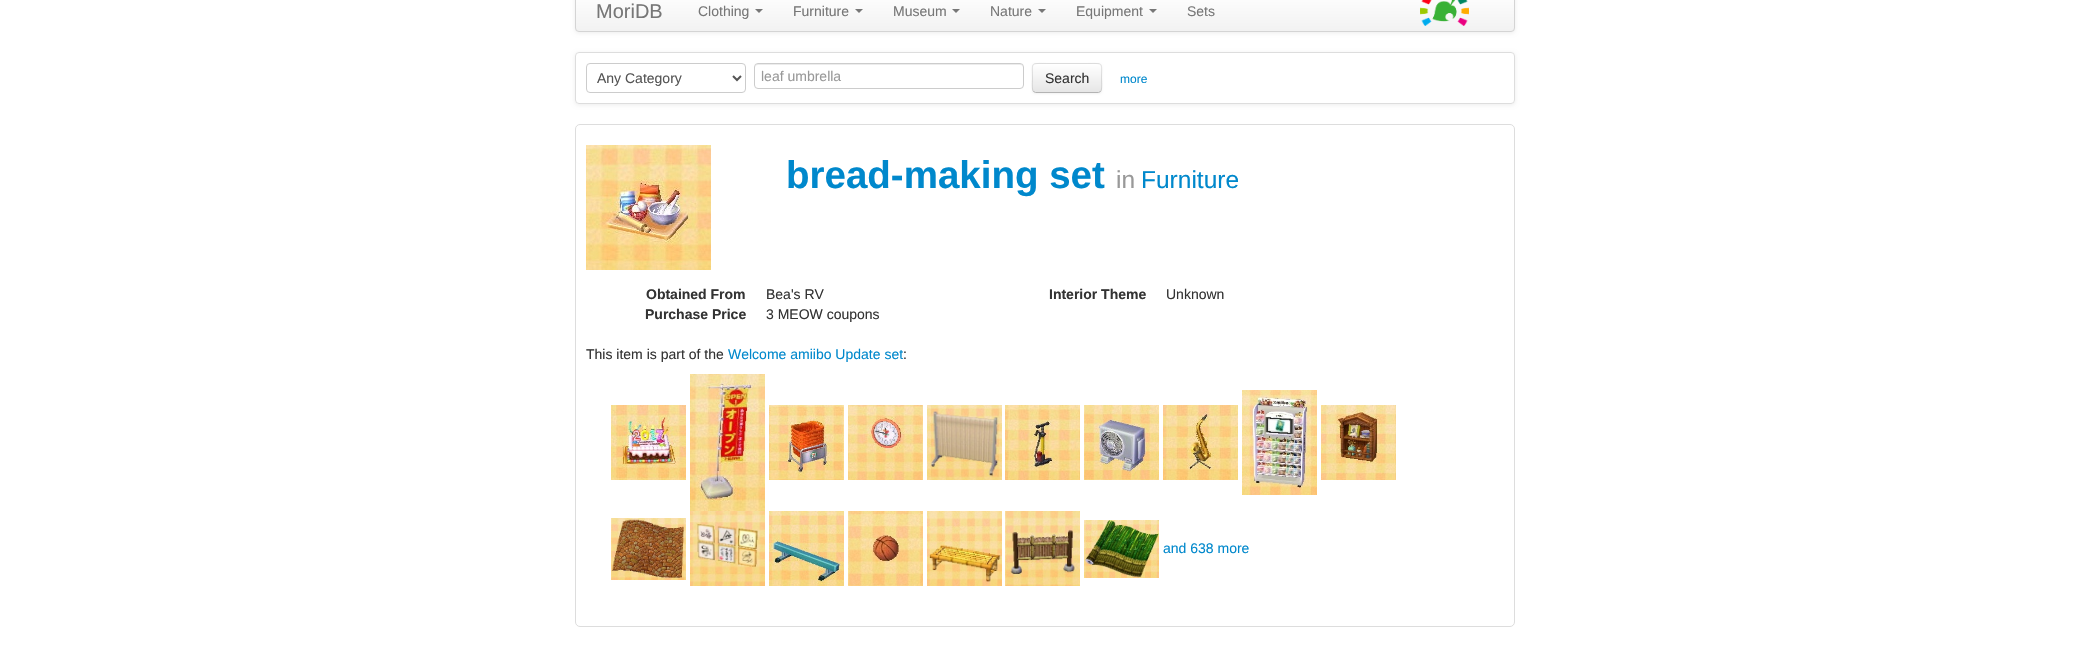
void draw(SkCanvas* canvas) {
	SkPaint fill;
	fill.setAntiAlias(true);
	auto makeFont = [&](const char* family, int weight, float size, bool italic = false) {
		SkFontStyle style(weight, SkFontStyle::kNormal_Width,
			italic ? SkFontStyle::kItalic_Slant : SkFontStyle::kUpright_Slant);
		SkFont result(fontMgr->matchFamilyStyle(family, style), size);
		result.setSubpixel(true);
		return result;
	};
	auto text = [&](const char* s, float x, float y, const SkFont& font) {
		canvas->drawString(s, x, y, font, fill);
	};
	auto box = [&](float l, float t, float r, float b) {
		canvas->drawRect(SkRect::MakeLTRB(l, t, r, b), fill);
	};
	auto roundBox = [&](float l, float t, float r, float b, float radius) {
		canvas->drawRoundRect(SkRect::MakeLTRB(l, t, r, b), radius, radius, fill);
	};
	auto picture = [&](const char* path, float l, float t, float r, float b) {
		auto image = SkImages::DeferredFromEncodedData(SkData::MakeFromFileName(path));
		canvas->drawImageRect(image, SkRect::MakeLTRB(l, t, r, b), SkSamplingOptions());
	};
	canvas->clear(0xFFFFFFFF);
	fill.setColor(0x12000000);
	fill.setMaskFilter(SkMaskFilter::MakeBlur(kNormal_SkBlurStyle, 2));
	canvas->drawRoundRect(SkRect::MakeLTRB(575, -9, 1515, 33), 4, 4, fill);
	fill.setMaskFilter(nullptr);
	canvas->save();
	canvas->clipPath(SkPathBuilder().moveTo(579, -10).lineTo(1511, -10).cubicTo(1513, -10, 1515, -8, 1515, -6).lineTo(1515, 28).cubicTo(1515, 30, 1513, 32, 1511, 32).lineTo(579, 32).cubicTo(577, 32, 575, 30, 575, 28).lineTo(575, -6).cubicTo(575, -8, 577, -10, 579, -10).close().detach(), true);
	{
		const SkColor colors[] = {0xFFFFFFFF, 0xFFF2F2F2};
		const float stops[] = {0, 1};
		const SkPoint ends[] = {{1045, -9}, {1045, 31}};
		fill.setShader(SkGradientShader::MakeLinear(ends, colors, stops, 2, SkTileMode::kClamp));
		fill.setAlpha(255);
	}
	box(575, 0, 1515, 31);
	canvas->restore();
	fill.setStyle(SkPaint::kStroke_Style);
	fill.setStrokeWidth(1);
	fill.setShader(nullptr);
	fill.setColor(0xFFD4D4D4);
	canvas->drawRoundRect(SkRect::MakeLTRB(575.5f, -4.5f, 1514.5f, 31.5f), 3.5f, 3.5f, fill);
	fill.setStyle(SkPaint::kFill_Style);
	fill.setColor(0xFF777777);
	canvas->drawPath(SkPathBuilder().moveTo(755, 9).lineTo(763, 9).lineTo(759, 13).close().detach(), fill);
	canvas->drawPath(SkPathBuilder().moveTo(855, 9).lineTo(863, 9).lineTo(859, 13).close().detach(), fill);
	canvas->drawPath(SkPathBuilder().moveTo(952, 9).lineTo(960, 9).lineTo(956, 13).close().detach(), fill);
	canvas->drawPath(SkPathBuilder().moveTo(1038, 9).lineTo(1046, 9).lineTo(1042, 13).close().detach(), fill);
	canvas->drawPath(SkPathBuilder().moveTo(1149, 9).lineTo(1157, 9).lineTo(1153, 13).close().detach(), fill);
	picture("image0.png", 1420, 0, 1469, 26);
	canvas->save();
	canvas->clipPath(SkPathBuilder(SkPathFillType::kEvenOdd).moveTo(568, 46).lineTo(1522, 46).lineTo(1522, 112).lineTo(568, 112).close().moveTo(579, 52).lineTo(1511, 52).cubicTo(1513, 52, 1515, 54, 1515, 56).lineTo(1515, 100).cubicTo(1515, 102, 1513, 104, 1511, 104).lineTo(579, 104).cubicTo(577, 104, 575, 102, 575, 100).lineTo(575, 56).cubicTo(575, 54, 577, 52, 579, 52).close().detach(), true);
	fill.setColor(0x12000000);
	fill.setMaskFilter(SkMaskFilter::MakeBlur(kNormal_SkBlurStyle, 2));
	canvas->drawRoundRect(SkRect::MakeLTRB(575, 53, 1515, 105), 4, 4, fill);
	fill.setMaskFilter(nullptr);
	canvas->restore();
	fill.setStyle(SkPaint::kStroke_Style);
	fill.setColor(0xFFDDDDDD);
	canvas->drawRoundRect(SkRect::MakeLTRB(575.5f, 52.5f, 1514.5f, 103.5f), 3.5f, 3.5f, fill);
	fill.setColor(0xFFCCCCCC);
	canvas->drawRoundRect(SkRect::MakeLTRB(586.5f, 63.5f, 745.5f, 92.5f), 3.5f, 3.5f, fill);
	fill.setStrokeWidth(2);
	fill.setColor(0xFF555555);
	canvas->drawPath(SkPathBuilder().moveTo(733, 76).lineTo(737, 80).lineTo(741, 76).detach(), fill);
	fill.setStyle(SkPaint::kFill_Style);
	fill.setColor(0xFFECECEC);
	canvas->drawPath(SkPathBuilder().moveTo(758, 65).lineTo(1020, 65).cubicTo(1022, 65, 1023, 66, 1023, 68).cubicTo(1023, 66, 1022, 64, 1020, 64).lineTo(758, 64).cubicTo(756, 64, 755, 66, 755, 68).cubicTo(755, 66, 756, 65, 758, 65).close().detach(), fill);
	fill.setStyle(SkPaint::kStroke_Style);
	fill.setStrokeWidth(1);
	fill.setColor(0xFFCCCCCC);
	canvas->drawRoundRect(SkRect::MakeLTRB(754.5f, 63.5f, 1023.5f, 88.5f), 3.5f, 3.5f, fill);
	fill.setStyle(SkPaint::kFill_Style);
	fill.setColor(0x0D000000);
	fill.setMaskFilter(SkMaskFilter::MakeBlur(kNormal_SkBlurStyle, 1));
	canvas->drawRoundRect(SkRect::MakeLTRB(1032, 64, 1102, 94), 4, 4, fill);
	fill.setMaskFilter(nullptr);
	fill.setColor(0xFFF5F5F5);
	roundBox(1032, 63, 1102, 93, 4);
	canvas->save();
	canvas->clipPath(SkPathBuilder().moveTo(1036, 63).lineTo(1098, 63).cubicTo(1100, 63, 1102, 65, 1102, 67).lineTo(1102, 89).cubicTo(1102, 91, 1100, 93, 1098, 93).lineTo(1036, 93).cubicTo(1034, 93, 1032, 91, 1032, 89).lineTo(1032, 67).cubicTo(1032, 65, 1034, 63, 1036, 63).close().detach(), true);
	{
		const SkColor colors[] = {0xFFFFFFFF, 0xFFE6E6E6};
		const float stops[] = {0, 1};
		const SkPoint ends[] = {{1067, 64}, {1067, 92}};
		fill.setShader(SkGradientShader::MakeLinear(ends, colors, stops, 2, SkTileMode::kClamp));
		fill.setAlpha(255);
	}
	box(1032, 64, 1102, 92);
	canvas->restore();
	fill.setStyle(SkPaint::kStroke_Style);
	fill.setShader(nullptr);
	fill.setColor(0xFFB3B3B3);
	canvas->drawPath(SkPathBuilder().moveTo(1100.5f, 91.5f).lineTo(1098.5f, 92.5f).lineTo(1035.5f, 92.5f).lineTo(1033.5f, 91.5f).detach(), fill);
	fill.setColor(0x1A000000);
	canvas->drawPath(SkPathBuilder().moveTo(1033.5f, 91.5f).cubicTo(1031.5f, 89.5f, 1032.5f, 81, 1032.5f, 78).cubicTo(1032.5f, 62, 1030, 63.5f, 1046.5f, 63.5f).lineTo(1087.5f, 63.5f).cubicTo(1104, 63.5f, 1101.5f, 62, 1101.5f, 78).cubicTo(1101.5f, 81, 1102.5f, 89.5f, 1100.5f, 91.5f).detach(), fill);
	fill.setColor(0xFFDDDDDD);
	canvas->drawRoundRect(SkRect::MakeLTRB(575.5f, 124.5f, 1514.5f, 626.5f), 4.5f, 4.5f, fill);
	picture("image1.png", 586, 145, 711, 270);
	picture("image2.png", 611, 405, 686, 480);
	picture("image3.png", 690, 374, 765, 511);
	picture("image4.png", 769, 405, 844, 480);
	picture("image5.png", 848, 405, 923, 480);
	picture("image6.png", 927, 405, 1002, 480);
	picture("image7.png", 1005, 405, 1080, 480);
	picture("image8.png", 1084, 405, 1159, 480);
	picture("image9.png", 1163, 405, 1238, 480);
	picture("image10.png", 1242, 390, 1317, 495);
	picture("image11.png", 1321, 405, 1396, 480);
	picture("image12.png", 611, 518, 686, 580);
	picture("image13.png", 690, 511, 765, 586);
	picture("image14.png", 769, 511, 844, 586);
	picture("image15.png", 848, 511, 923, 586);
	picture("image16.png", 927, 511, 1002, 586);
	picture("image17.png", 1005, 511, 1080, 586);
	picture("image18.png", 1084, 520, 1159, 578);
	auto font1 = makeFont("Liberation Sans", 400, 20);
	fill.setStyle(SkPaint::kFill_Style);
	fill.setColor(0xFF777777);
	text("MoriDB", 596, 18, font1);
	auto font2 = makeFont("Liberation Sans", 400, 14);
	text("Clothing", 698, 16, font2);
	text("Furniture", 793, 16, font2);
	text("Museum", 893, 16, font2);
	text("Nature", 990, 16, font2);
	text("Equipment", 1076, 16, font2);
	text("Sets", 1187, 16, font2);
	fill.setColor(0xFF555555);
	text("Any Category", 597, 83, font2);
	fill.setColor(0xFF999999);
	text("leaf umbrella", 761, 81, font2);
	fill.setColor(0xFF333333);
	text("Search", 1045, 83, font2);
	auto font3 = makeFont("Liberation Sans", 400, 12);
	fill.setColor(0xFF0088CC);
	text("more", 1120, 83, font3);
	auto font4 = makeFont("Liberation Sans", 700, 38.5f);
	text("bread-making set", 786, 188, font4);
	auto font5 = makeFont("Liberation Sans", 400, 24.5f);
	fill.setColor(0xFF999999);
	text("in", 1116, 188, font5);
	fill.setColor(0xFF0088CC);
	text("Furniture", 1141, 188, font5);
	auto font6 = makeFont("Liberation Sans", 700, 14);
	fill.setColor(0xFF333333);
	text("Obtained From", 646, 299, font6);
	text("Bea's RV", 766, 299, font2);
	text("Purchase Price", 645, 319, font6);
	text("3 MEOW coupons", 766, 319, font2);
	text("Interior Theme", 1049, 299, font6);
	text("Unknown", 1166, 299, font2);
	text("This item is part of the", 586, 359, font2);
	fill.setColor(0xFF0088CC);
	text("Welcome amiibo Update set", 728, 359, font2);
	fill.setColor(0xFF333333);
	text(":", 903, 359, font2);
	fill.setColor(0xFF0088CC);
	text("and 638 more", 1163, 553, font2);
}
